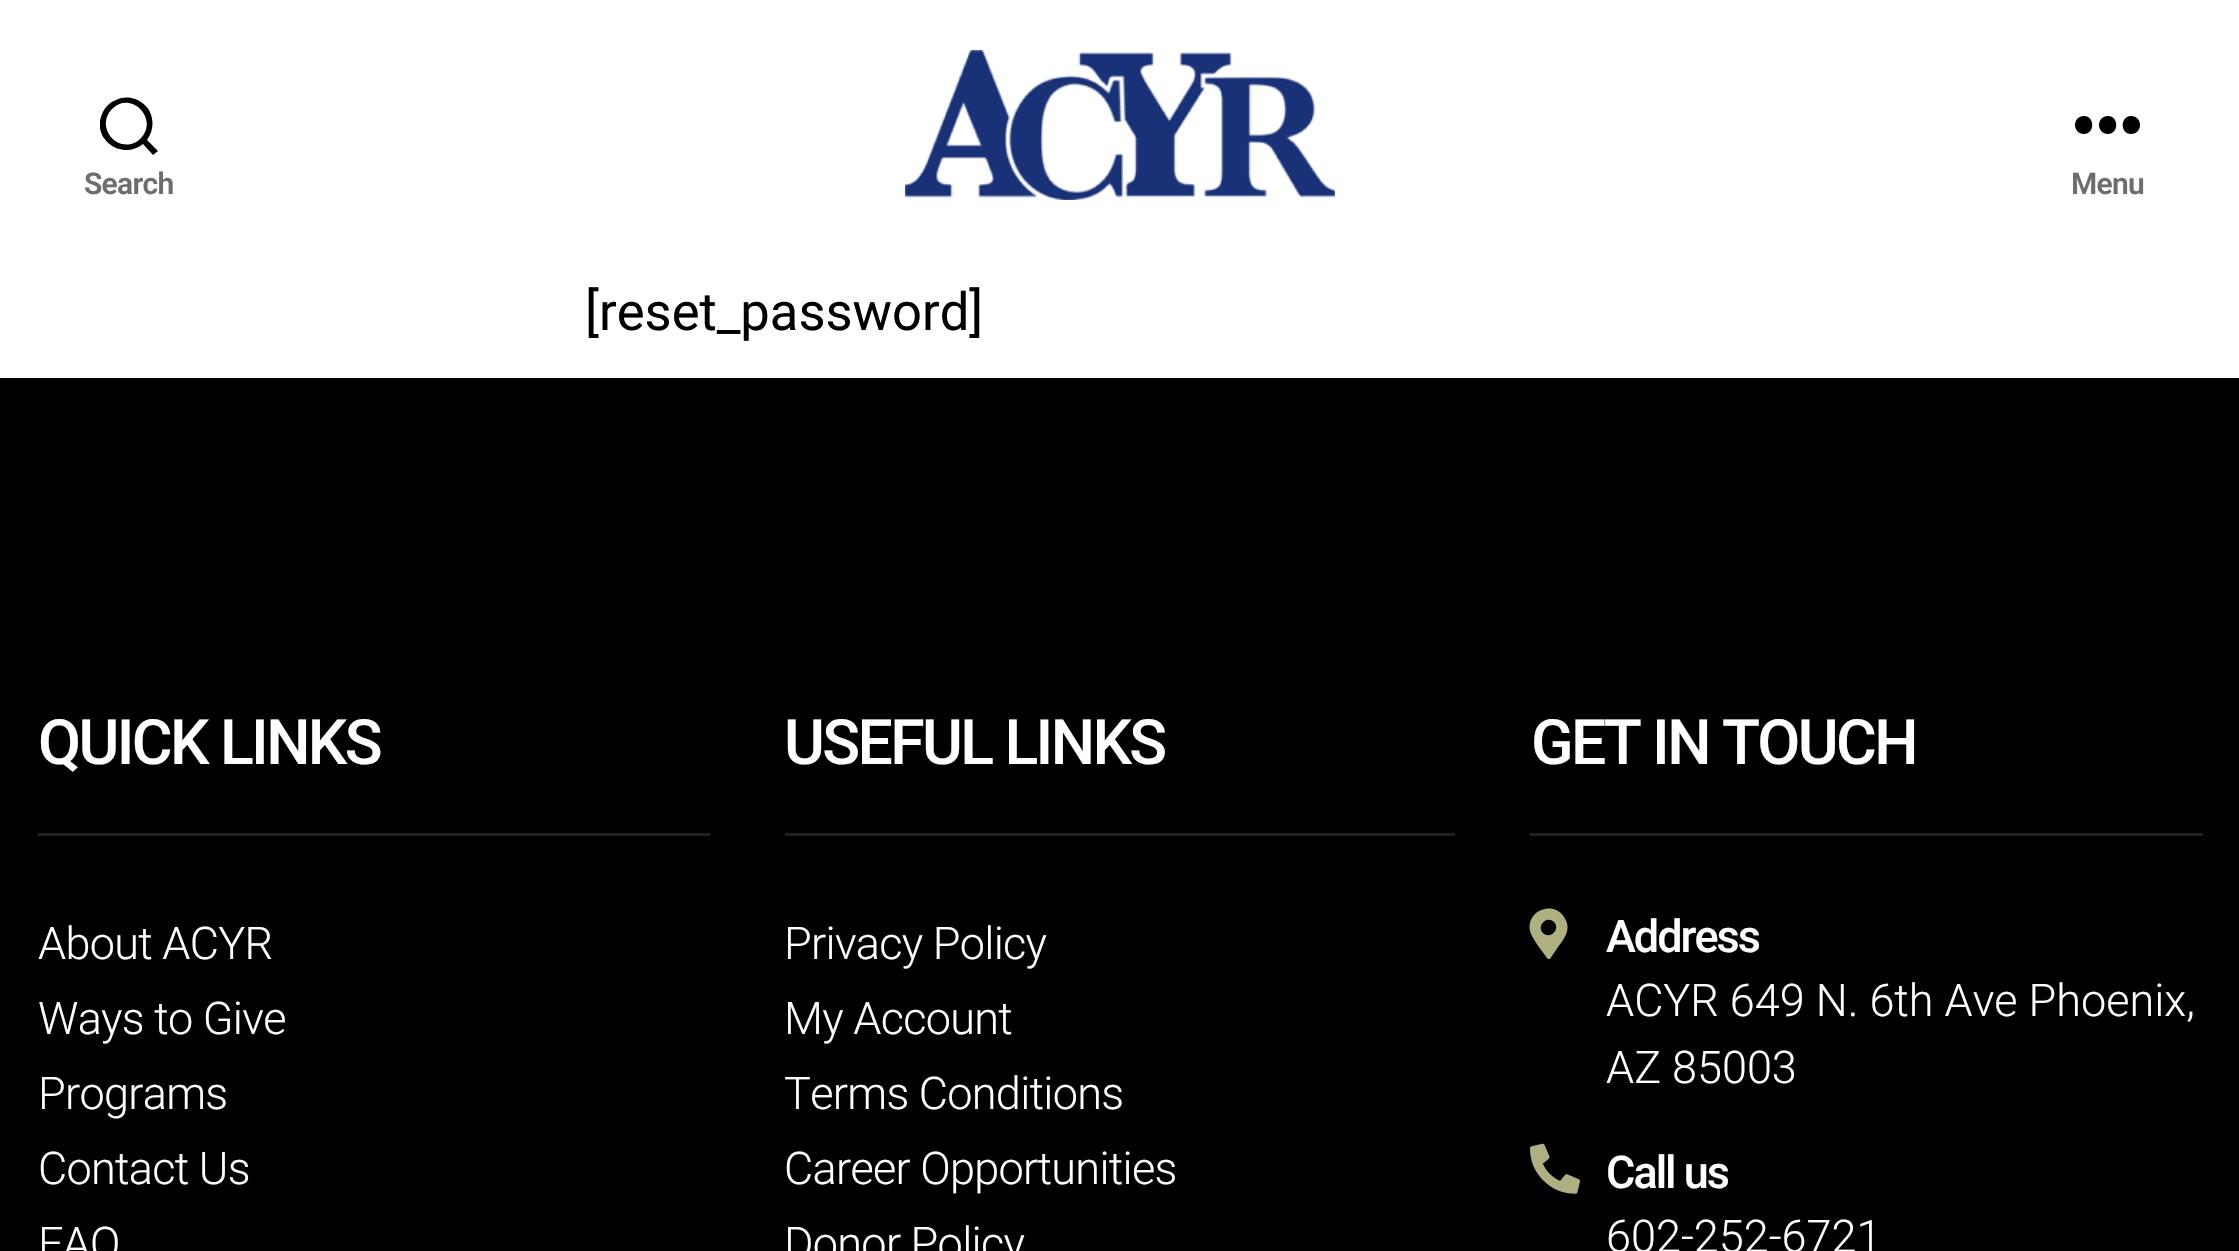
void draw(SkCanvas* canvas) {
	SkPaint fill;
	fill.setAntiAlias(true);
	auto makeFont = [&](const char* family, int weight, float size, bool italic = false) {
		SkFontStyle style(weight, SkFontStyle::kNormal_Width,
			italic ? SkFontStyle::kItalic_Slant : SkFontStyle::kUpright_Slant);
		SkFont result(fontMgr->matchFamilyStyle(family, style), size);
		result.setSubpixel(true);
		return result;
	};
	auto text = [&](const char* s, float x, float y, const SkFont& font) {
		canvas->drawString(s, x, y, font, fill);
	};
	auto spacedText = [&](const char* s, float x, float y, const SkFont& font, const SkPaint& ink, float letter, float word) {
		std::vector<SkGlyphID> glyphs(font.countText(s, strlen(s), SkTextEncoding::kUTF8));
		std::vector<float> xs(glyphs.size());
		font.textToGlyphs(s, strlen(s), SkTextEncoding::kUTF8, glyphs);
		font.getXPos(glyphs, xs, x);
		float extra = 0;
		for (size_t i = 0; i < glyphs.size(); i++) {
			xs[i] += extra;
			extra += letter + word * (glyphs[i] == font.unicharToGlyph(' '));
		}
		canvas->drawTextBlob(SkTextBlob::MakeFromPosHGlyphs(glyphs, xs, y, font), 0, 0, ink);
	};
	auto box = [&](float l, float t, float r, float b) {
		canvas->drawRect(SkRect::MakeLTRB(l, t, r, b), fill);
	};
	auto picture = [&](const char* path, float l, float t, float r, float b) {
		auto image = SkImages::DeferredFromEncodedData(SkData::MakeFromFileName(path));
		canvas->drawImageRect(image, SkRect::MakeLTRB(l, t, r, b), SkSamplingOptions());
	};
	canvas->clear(0xFFFFFFFF);
	canvas->save();
	canvas->clipRect(SkRect::MakeLTRB(100, 95, 158, 158));
	fill.setColor(0xFF000000);
	canvas->drawPath(SkPathBuilder().moveTo(147, 140).lineTo(158, 151).lineTo(153, 155).lineTo(143, 144).cubicTo(122, 161, 91, 139, 102, 114).cubicTo(105, 107, 110, 102, 116, 100).cubicTo(124, 96, 134, 97, 141, 102).cubicTo(154, 110, 156, 128, 147, 140).close().moveTo(141, 138).cubicTo(159, 119, 131, 90, 112, 109).cubicTo(96, 125, 114, 151, 134, 143).cubicTo(137, 142, 139, 140, 141, 138).close().detach(), fill);
	canvas->restore();
	picture("image0.png", 905, 50, 1335, 200);
	canvas->drawPath(SkPathBuilder(SkPathFillType::kEvenOdd).moveTo(2084, 134).cubicTo(2072, 134, 2072, 116, 2084, 116).cubicTo(2095, 116, 2095, 134, 2084, 134).close().moveTo(2108, 134).cubicTo(2096, 134, 2096, 116, 2108, 116).cubicTo(2119, 116, 2119, 134, 2108, 134).close().moveTo(2131, 134).cubicTo(2120, 134, 2120, 116, 2131, 116).cubicTo(2143, 116, 2143, 134, 2131, 134).close().detach(), fill);
	box(0, 378, 2239, 1251);
	fill.setColor(0xFF202020);
	box(38, 833, 710, 836);
	box(785, 833, 1455, 836);
	box(1530, 833, 2203, 836);
	fill.setColor(0xFFAFB081);
	canvas->drawPath(SkPathBuilder().moveTo(1547, 958).cubicTo(1543, 952, 1532, 939, 1530, 931).cubicTo(1526, 911, 1553, 900, 1564, 917).cubicTo(1573, 930, 1563, 940, 1556, 950).lineTo(1550, 959).cubicTo(1549, 959, 1547, 959, 1547, 958).close().moveTo(1543, 933).cubicTo(1550, 940, 1561, 929, 1554, 922).cubicTo(1547, 915, 1536, 926, 1543, 933).close().detach(), fill);
	picture("image1.png", 1530, 1143, 1580, 1194);
	auto font1 = makeFont("Roboto", 600, 30);
	fill.setColor(0xFF6D6D6D);
	spacedText("Search", 84, 194, font1, fill, -0.7f, 0);
	spacedText("Menu", 2071, 194, font1, fill, -0.7f, 0);
	auto font2 = makeFont("Roboto", 400, 52.5f);
	fill.setColor(0xFF000000);
	text("[reset_password]", 585, 330, font2);
	auto font3 = makeFont("Roboto", 500, 62.5f);
	fill.setColor(0xFFFFFFFF);
	spacedText("QUICK LINKS", 38, 764, font3, fill, -2.6f, 0);
	auto font4 = makeFont("Roboto", 300, 45);
	spacedText("About ACYR", 38, 959, font4, fill, -0.7f, 0);
	spacedText("Ways to Give", 38, 1034, font4, fill, -0.7f, 0);
	spacedText("Programs", 38, 1109, font4, fill, -0.7f, 0);
	spacedText("Contact Us", 38, 1184, font4, fill, -0.7f, 0);
	spacedText("FAQ", 38, 1259, font4, fill, -0.7f, 0);
	spacedText("USEFUL LINKS", 784, 764, font3, fill, -2.6f, 0);
	spacedText("Privacy Policy", 784, 959, font4, fill, -0.7f, 0);
	spacedText("My Account", 784, 1034, font4, fill, -0.7f, 0);
	spacedText("Terms Conditions", 784, 1109, font4, fill, -0.7f, 0);
	spacedText("Career Opportunities", 784, 1184, font4, fill, -0.7f, 0);
	spacedText("Donor Policy", 784, 1259, font4, fill, -0.7f, 0);
	spacedText("GET IN TOUCH", 1531, 764, font3, fill, -2.6f, 0);
	auto font5 = makeFont("Roboto", 500, 45);
	spacedText("Address", 1606, 952, font5, fill, -2, 0);
	text("ACYR 649 N. 6th Ave Phoenix,", 1606, 1016, font4);
	text("AZ 85003", 1606, 1083, font4);
	spacedText("Call us", 1606, 1188, font5, fill, -2, 0);
	text("602-252-6721", 1606, 1252, font4);
}
